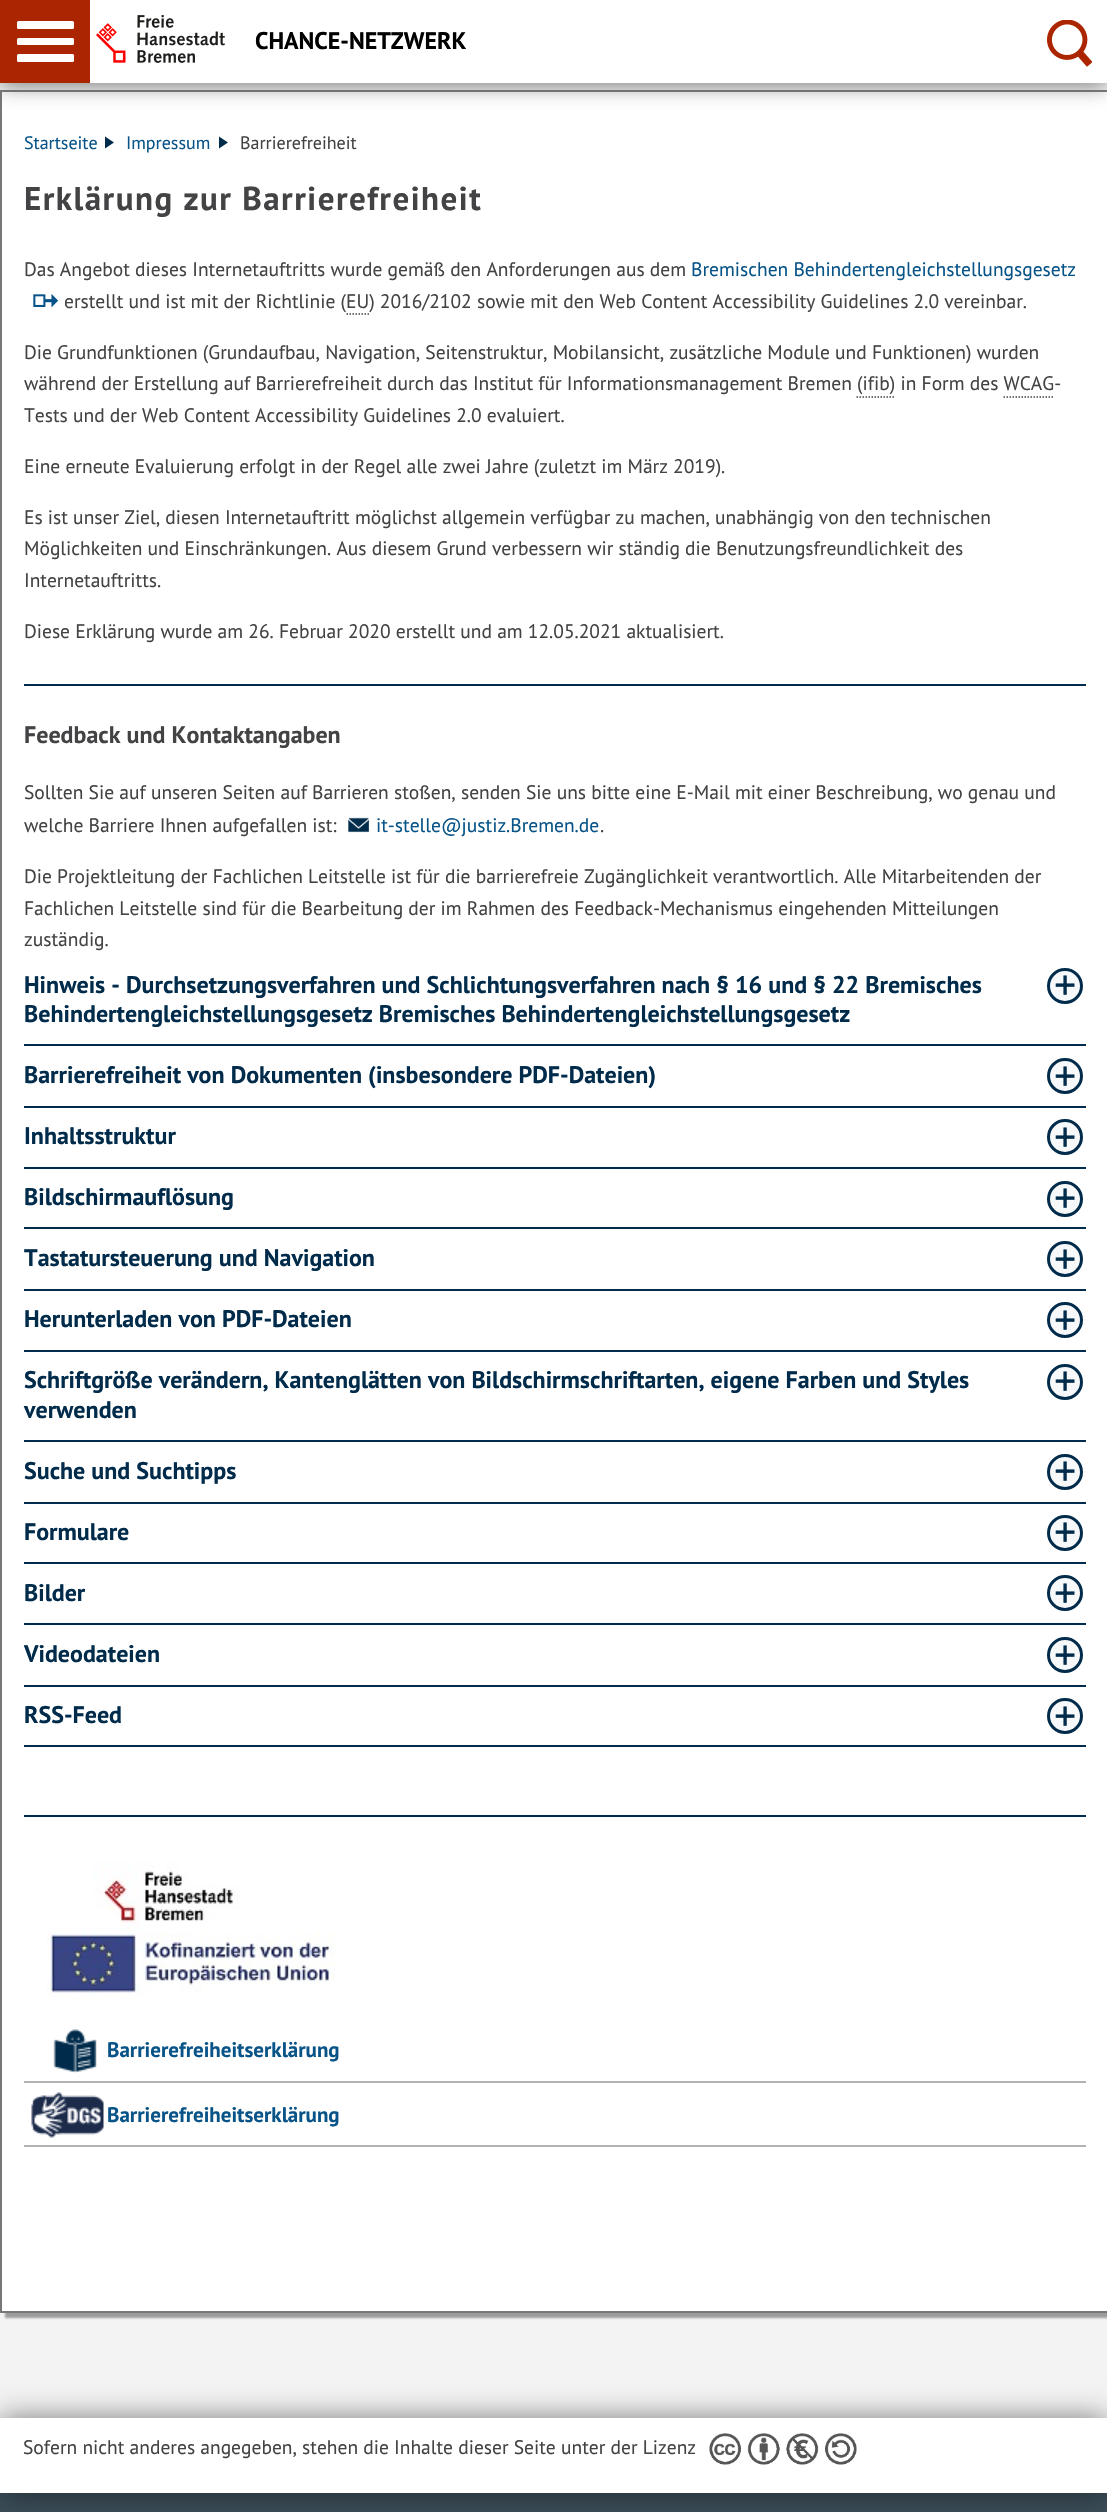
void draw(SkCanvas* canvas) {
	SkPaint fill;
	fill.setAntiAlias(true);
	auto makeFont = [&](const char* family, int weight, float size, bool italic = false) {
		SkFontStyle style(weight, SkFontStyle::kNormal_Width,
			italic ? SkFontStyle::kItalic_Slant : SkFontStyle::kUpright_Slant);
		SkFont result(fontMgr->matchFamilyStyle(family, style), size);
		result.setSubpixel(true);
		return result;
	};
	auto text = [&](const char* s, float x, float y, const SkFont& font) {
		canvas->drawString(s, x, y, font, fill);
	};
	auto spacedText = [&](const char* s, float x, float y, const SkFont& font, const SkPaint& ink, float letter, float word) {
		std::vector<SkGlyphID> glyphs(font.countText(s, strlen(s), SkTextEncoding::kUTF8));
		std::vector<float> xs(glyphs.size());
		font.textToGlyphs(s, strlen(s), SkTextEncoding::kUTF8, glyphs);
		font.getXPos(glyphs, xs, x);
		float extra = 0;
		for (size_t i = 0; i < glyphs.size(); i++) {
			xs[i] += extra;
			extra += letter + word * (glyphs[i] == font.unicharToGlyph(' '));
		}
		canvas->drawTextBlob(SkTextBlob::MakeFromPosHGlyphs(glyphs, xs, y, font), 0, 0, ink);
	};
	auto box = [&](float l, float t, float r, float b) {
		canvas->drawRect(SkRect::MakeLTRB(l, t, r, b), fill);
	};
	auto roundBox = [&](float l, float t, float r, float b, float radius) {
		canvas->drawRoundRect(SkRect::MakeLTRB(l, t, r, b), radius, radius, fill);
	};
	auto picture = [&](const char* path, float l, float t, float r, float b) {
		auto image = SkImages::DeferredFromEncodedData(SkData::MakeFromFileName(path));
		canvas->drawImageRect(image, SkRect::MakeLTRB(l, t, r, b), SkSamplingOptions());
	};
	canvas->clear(0xFFF3F3F3);
	fill.setColor(0x73323232);
	fill.setMaskFilter(SkMaskFilter::MakeBlur(kNormal_SkBlurStyle, 1));
	canvas->drawRect(SkRect::MakeLTRB(5, 95, 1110, 2318), fill);
	fill.setMaskFilter(nullptr);
	fill.setColor(0xFFFFFFFF);
	canvas->drawRect(SkRect::MakeLTRB(1, 91, 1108, 2312), fill);
	fill.setStyle(SkPaint::kStroke_Style);
	fill.setStrokeWidth(2);
	fill.setColor(0xFF777777);
	canvas->drawRect(SkRect::MakeLTRB(1, 91, 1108, 2312), fill);
	fill.setStyle(SkPaint::kFill_Style);
	fill.setColor(0xCC646464);
	fill.setMaskFilter(SkMaskFilter::MakeBlur(kNormal_SkBlurStyle, 10));
	canvas->drawRect(SkRect::MakeLTRB(0, 3, 1107, 86), fill);
	fill.setMaskFilter(nullptr);
	fill.setColor(0xFFAB2600);
	box(0, 0, 90, 83);
	fill.setColor(0xFFFFFFFF);
	roundBox(17, 21, 74, 29, 1.5f);
	roundBox(17, 38, 74, 45, 1.5f);
	roundBox(17, 54, 74, 62, 1.5f);
	box(90, 0, 1107, 83);
	picture("image0.png", 96, 15, 225, 63);
	picture("image1.png", 1047, 20, 1092, 67);
	fill.setColor(0xFF002B4B);
	canvas->drawPath(SkPathBuilder().moveTo(105, 148.5f).lineTo(105, 136.5f).lineTo(114, 142.5f).close().detach(), fill);
	canvas->drawPath(SkPathBuilder().moveTo(219, 148.5f).lineTo(219, 136.5f).lineTo(228, 142.5f).close().detach(), fill);
	picture("image2.png", 33, 294, 59, 308);
	fill.setStyle(SkPaint::kStroke_Style);
	fill.setStrokeWidth(1.5f);
	fill.setColor(0xFF434345);
	fill.setPathEffect(SkDashPathEffect::Make({{1.5f, 1.5f}}, 0));
	canvas->drawPath(SkPathBuilder().moveTo(346.5f, 314).lineTo(369, 314).detach(), fill);
	fill.setPathEffect(nullptr);
	fill.setPathEffect(SkDashPathEffect::Make({{1.5f, 1.5f}}, 0));
	canvas->drawPath(SkPathBuilder().moveTo(856.5f, 397).lineTo(895.5f, 397).detach(), fill);
	fill.setPathEffect(nullptr);
	fill.setPathEffect(SkDashPathEffect::Make({{1.5f, 1.5f}}, 0));
	canvas->drawPath(SkPathBuilder().moveTo(1003.5f, 397).lineTo(1054.5f, 397).detach(), fill);
	fill.setPathEffect(nullptr);
	fill.setStyle(SkPaint::kFill_Style);
	fill.setColor(0xFF002B4B);
	box(24, 684, 1086, 686);
	picture("image3.png", 348, 817, 369, 833);
	box(24, 1044, 1086, 1046);
	fill.setColor(0xFFF6F8FA);
	canvas->drawCircle(1065, 986, 16.5f, fill);
	fill.setStyle(SkPaint::kStroke_Style);
	fill.setStrokeWidth(3);
	fill.setColor(0xFF002B4B);
	canvas->drawCircle(1065, 986, 16.5f, fill);
	fill.setStyle(SkPaint::kFill_Style);
	box(24, 1106, 1086, 1108);
	fill.setColor(0xFFF6F8FA);
	canvas->drawCircle(1065, 1076, 16.5f, fill);
	fill.setStyle(SkPaint::kStroke_Style);
	fill.setColor(0xFF002B4B);
	canvas->drawCircle(1065, 1076, 16.5f, fill);
	fill.setStyle(SkPaint::kFill_Style);
	box(24, 1167, 1086, 1169);
	fill.setColor(0xFFF6F8FA);
	canvas->drawCircle(1065, 1137, 16.5f, fill);
	fill.setStyle(SkPaint::kStroke_Style);
	fill.setColor(0xFF002B4B);
	canvas->drawCircle(1065, 1137, 16.5f, fill);
	fill.setStyle(SkPaint::kFill_Style);
	box(24, 1227, 1086, 1229);
	fill.setColor(0xFFF6F8FA);
	canvas->drawCircle(1065, 1199, 16.5f, fill);
	fill.setStyle(SkPaint::kStroke_Style);
	fill.setColor(0xFF002B4B);
	canvas->drawCircle(1065, 1199, 16.5f, fill);
	fill.setStyle(SkPaint::kFill_Style);
	box(24, 1289, 1086, 1291);
	fill.setColor(0xFFF6F8FA);
	canvas->drawCircle(1065, 1259, 16.5f, fill);
	fill.setStyle(SkPaint::kStroke_Style);
	fill.setColor(0xFF002B4B);
	canvas->drawCircle(1065, 1259, 16.5f, fill);
	fill.setStyle(SkPaint::kFill_Style);
	box(24, 1350, 1086, 1352);
	fill.setColor(0xFFF6F8FA);
	canvas->drawCircle(1065, 1320, 16.5f, fill);
	fill.setStyle(SkPaint::kStroke_Style);
	fill.setColor(0xFF002B4B);
	canvas->drawCircle(1065, 1320, 16.5f, fill);
	fill.setStyle(SkPaint::kFill_Style);
	box(24, 1440, 1086, 1442);
	fill.setColor(0xFFF6F8FA);
	canvas->drawCircle(1065, 1382, 16.5f, fill);
	fill.setStyle(SkPaint::kStroke_Style);
	fill.setColor(0xFF002B4B);
	canvas->drawCircle(1065, 1382, 16.5f, fill);
	fill.setStyle(SkPaint::kFill_Style);
	box(24, 1502, 1086, 1504);
	fill.setColor(0xFFF6F8FA);
	canvas->drawCircle(1065, 1472, 16.5f, fill);
	fill.setStyle(SkPaint::kStroke_Style);
	fill.setColor(0xFF002B4B);
	canvas->drawCircle(1065, 1472, 16.5f, fill);
	fill.setStyle(SkPaint::kFill_Style);
	box(24, 1562, 1086, 1564);
	fill.setColor(0xFFF6F8FA);
	canvas->drawCircle(1065, 1533, 16.5f, fill);
	fill.setStyle(SkPaint::kStroke_Style);
	fill.setColor(0xFF002B4B);
	canvas->drawCircle(1065, 1533, 16.5f, fill);
	fill.setStyle(SkPaint::kFill_Style);
	box(24, 1623, 1086, 1625);
	fill.setColor(0xFFF6F8FA);
	canvas->drawCircle(1065, 1593, 16.5f, fill);
	fill.setStyle(SkPaint::kStroke_Style);
	fill.setColor(0xFF002B4B);
	canvas->drawCircle(1065, 1593, 16.5f, fill);
	fill.setStyle(SkPaint::kFill_Style);
	box(24, 1685, 1086, 1687);
	fill.setColor(0xFFF6F8FA);
	canvas->drawCircle(1065, 1655, 16.5f, fill);
	fill.setStyle(SkPaint::kStroke_Style);
	fill.setColor(0xFF002B4B);
	canvas->drawCircle(1065, 1655, 16.5f, fill);
	fill.setStyle(SkPaint::kFill_Style);
	box(24, 1745, 1086, 1747);
	fill.setColor(0xFFF6F8FA);
	canvas->drawCircle(1065, 1716, 16.5f, fill);
	fill.setStyle(SkPaint::kStroke_Style);
	fill.setColor(0xFF002B4B);
	canvas->drawCircle(1065, 1716, 16.5f, fill);
	fill.setStyle(SkPaint::kFill_Style);
	box(24, 1815, 1086, 1817);
	picture("image4.png", 46, 1861, 335, 1999);
	fill.setColor(0xFFB3B3B3);
	box(24, 2081, 1086, 2083);
	picture("image5.png", 53, 2029, 97, 2073);
	box(24, 2145, 1086, 2147);
	picture("image6.png", 31, 2092, 104, 2138);
	fill.setColor(0xFF3B4D58);
	box(0, 2493, 1107, 2512);
	fill.setColor(0x80000000);
	fill.setMaskFilter(SkMaskFilter::MakeBlur(kNormal_SkBlurStyle, 15));
	canvas->drawRect(SkRect::MakeLTRB(0, 2418, 1107, 2493), fill);
	fill.setMaskFilter(nullptr);
	fill.setColor(0xFFFFFFFF);
	box(0, 2418, 1107, 2493);
	picture("image7.png", 709, 2433, 857, 2465);
	auto font1 = makeFont("PT Sans", 700, 24);
	fill.setColor(0xFF000000);
	text("CHANCE-NETZWERK", 255, 49, font1);
	auto font2 = makeFont("PT Sans", 400, 18);
	fill.setColor(0xFF085488);
	text("Startseite", 24, 149, font2);
	text("Impressum", 126, 149, font2);
	fill.setColor(0xFF434345);
	text("Barrierefreiheit", 240, 149, font2);
	auto font3 = makeFont("PT Sans", 700, 33);
	spacedText("Erklärung zur Barrierefreiheit", 24, 210, font3, fill, 1.5f, 0);
	auto font4 = makeFont("PT Sans", 400, 19.5f);
	text("Das Angebot dieses Internetauftritts wurde gemäß den Anforderungen aus dem", 24, 276, font4);
	fill.setColor(0xFF085488);
	text("Bremischen Behindertengleichstellungsgesetz", 691, 276, font4);
	fill.setColor(0xFF434345);
	text("erstellt und ist mit der Richtlinie (EU) 2016/2102 sowie mit den Web Content Accessibility Guidelines 2.0 vereinbar.", 64, 308, font4);
	text("Die Grundfunktionen (Grundaufbau, Navigation, Seitenstruktur, Mobilansicht, zusätzliche Module und Funktionen) wurden", 24, 359, font4);
	text("während der Erstellung auf Barrierefreiheit durch das Institut für Informationsmanagement Bremen (ifib) in Form des WCAG-", 24, 390, font4);
	text("Tests und der Web Content Accessibility Guidelines 2.0 evaluiert.", 24, 422, font4);
	text("Eine erneute Evaluierung erfolgt in der Regel alle zwei Jahre (zuletzt im März 2019).", 24, 473, font4);
	text("Es ist unser Ziel, diesen Internetauftritt möglichst allgemein verfügbar zu machen, unabhängig von den technischen", 24, 524, font4);
	text("Möglichkeiten und Einschränkungen. Aus diesem Grund verbessern wir ständig die Benutzungsfreundlichkeit des", 24, 555, font4);
	text("Internetauftritts.", 24, 587, font4);
	text("Diese Erklärung wurde am 26. Februar 2020 erstellt und am 12.05.2021 aktualisiert.", 24, 638, font4);
	text("Feedback und Kontaktangaben", 24, 743, font1);
	text("Sollten Sie auf unseren Seiten auf Barrieren stoßen, senden Sie uns bitte eine E-Mail mit einer Beschreibung, wo genau und", 24, 799, font4);
	text("welche Barriere Ihnen aufgefallen ist:", 24, 832, font4);
	fill.setColor(0xFF085488);
	text("it-stelle@justiz.Bremen.de", 376, 832, font4);
	fill.setColor(0xFF434345);
	text(".", 600, 832, font4);
	text("Die Projektleitung der Fachlichen Leitstelle ist für die barrierefreie Zugänglichkeit verantwortlich. Alle Mitarbeitenden der", 24, 883, font4);
	text("Fachlichen Leitstelle sind für die Bearbeitung der im Rahmen des Feedback-Mechanismus eingehenden Mitteilungen", 24, 915, font4);
	text("zuständig.", 24, 946, font4);
	fill.setColor(0xFF002B4B);
	text("Hinweis - Durchsetzungsverfahren und Schlichtungsverfahren nach § 16 und § 22 Bremisches", 24, 993, font1);
	auto font5 = makeFont("PT Sans", 400, 44);
	text("+", 1054, 1000, font5);
	text("Behindertengleichstellungsgesetz Bremisches Behindertengleichstellungsgesetz", 24, 1022, font1);
	text("Barrierefreiheit von Dokumenten (insbesondere PDF-Dateien)", 24, 1083, font1);
	text("+", 1054, 1091, font5);
	text("Inhaltsstruktur", 24, 1144, font1);
	text("+", 1054, 1152, font5);
	text("Bildschirmauflösung", 24, 1205, font1);
	text("+", 1054, 1213, font5);
	text("Tastatursteuerung und Navigation", 24, 1266, font1);
	text("+", 1054, 1274, font5);
	text("Herunterladen von PDF-Dateien", 24, 1327, font1);
	text("+", 1054, 1335, font5);
	text("Schriftgröße verändern, Kantenglätten von Bildschirmschriftarten, eigene Farben und Styles", 24, 1388, font1);
	text("+", 1054, 1396, font5);
	text("verwenden", 24, 1418, font1);
	text("Suche und Suchtipps", 24, 1479, font1);
	text("+", 1054, 1486, font5);
	text("Formulare", 24, 1540, font1);
	text("+", 1054, 1547, font5);
	text("Bilder", 24, 1601, font1);
	text("+", 1054, 1608, font5);
	text("Videodateien", 24, 1662, font1);
	text("+", 1054, 1670, font5);
	text("RSS-Feed", 24, 1723, font1);
	text("+", 1054, 1731, font5);
	auto font6 = makeFont("PT Sans", 700, 21);
	fill.setColor(0xFF085488);
	text("Barrierefreiheitserklärung", 107, 2057, font6);
	text("Barrierefreiheitserklärung", 107, 2122, font6);
	fill.setColor(0xFF434345);
	text("Sofern nicht anderes angegeben, stehen die Inhalte dieser Seite unter der Lizenz", 23, 2454, font4);
}
